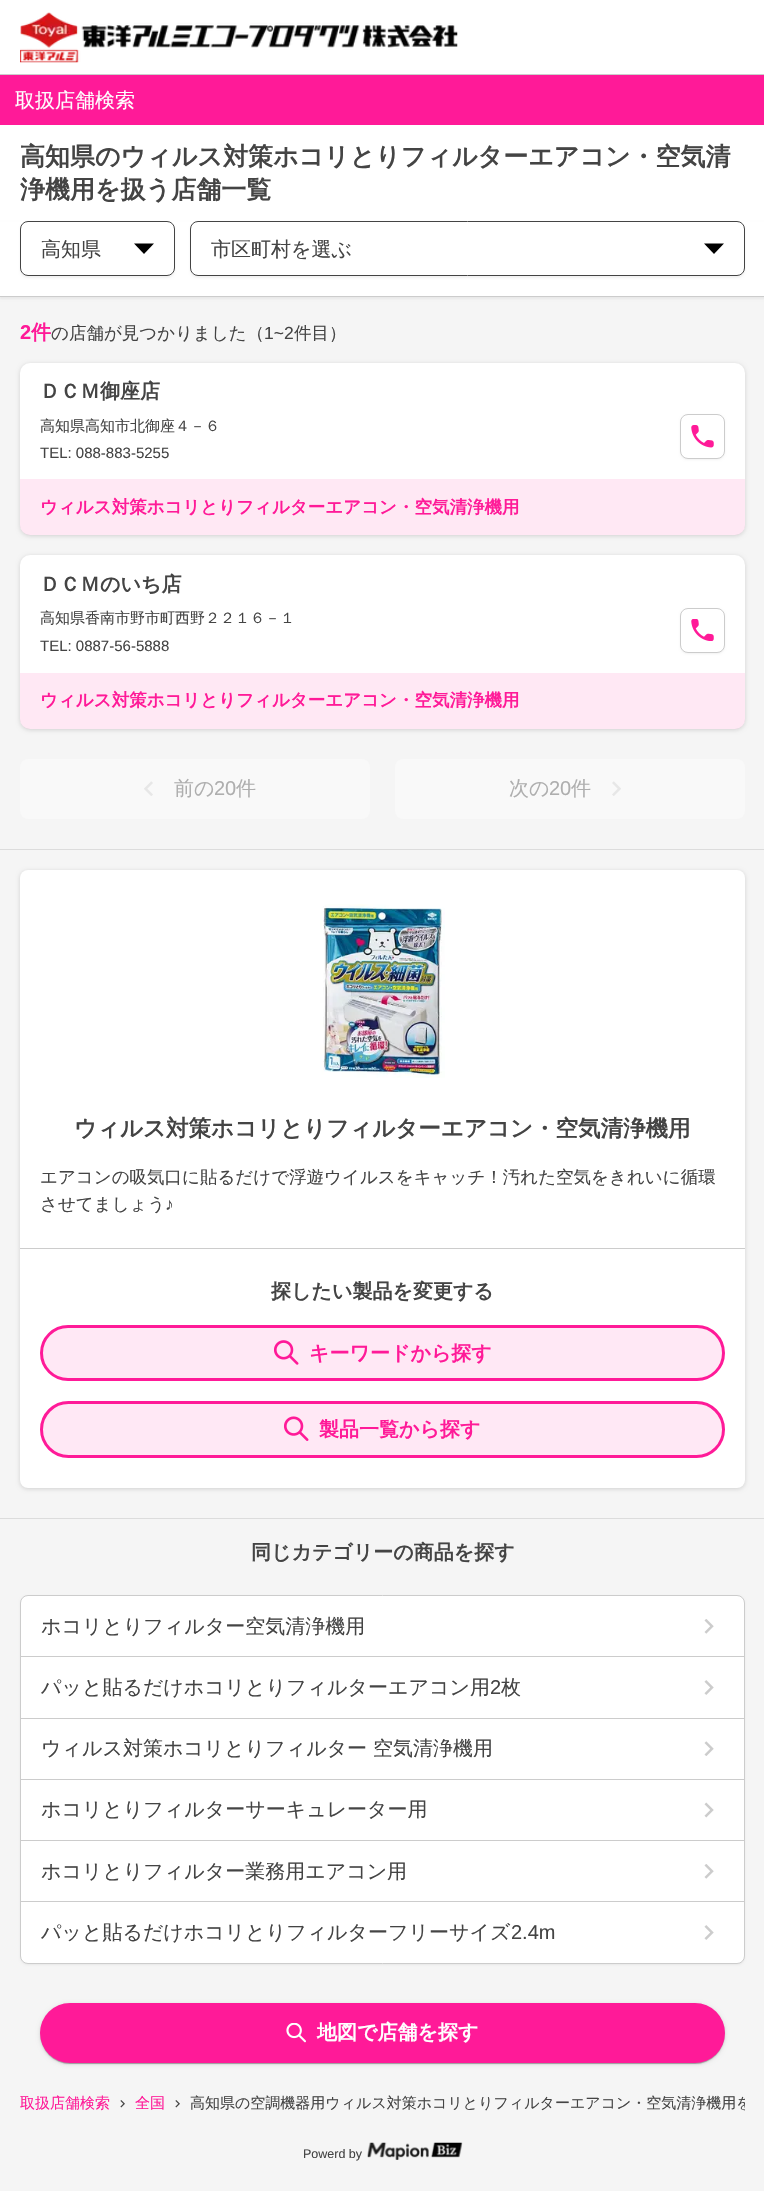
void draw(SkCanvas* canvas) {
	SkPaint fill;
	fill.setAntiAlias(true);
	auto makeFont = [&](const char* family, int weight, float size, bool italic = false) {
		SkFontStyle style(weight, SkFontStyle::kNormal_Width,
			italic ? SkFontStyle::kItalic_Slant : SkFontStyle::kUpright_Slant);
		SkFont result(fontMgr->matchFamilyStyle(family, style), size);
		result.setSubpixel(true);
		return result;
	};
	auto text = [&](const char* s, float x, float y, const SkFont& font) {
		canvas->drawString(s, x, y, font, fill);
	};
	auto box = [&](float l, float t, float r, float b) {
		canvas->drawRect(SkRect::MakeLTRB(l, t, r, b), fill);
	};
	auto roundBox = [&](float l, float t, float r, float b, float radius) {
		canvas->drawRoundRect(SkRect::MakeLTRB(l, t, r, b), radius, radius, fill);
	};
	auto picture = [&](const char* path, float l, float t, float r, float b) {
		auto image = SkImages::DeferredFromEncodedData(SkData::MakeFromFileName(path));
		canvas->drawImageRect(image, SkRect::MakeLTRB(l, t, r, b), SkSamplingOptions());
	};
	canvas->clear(0xFFFFFFFF);
	fill.setColor(0xFFCCCCCC);
	box(0, 74, 764, 75);
	picture("image0.png", 20, 12, 458, 63);
	fill.setColor(0xFFFF1A98);
	box(0, 75, 764, 125);
	fill.setColor(0xFFF5F5F5);
	box(0, 297, 764, 2191);
	fill.setColor(0x0D000000);
	fill.setMaskFilter(SkMaskFilter::MakeBlur(kNormal_SkBlurStyle, 1));
	canvas->drawRect(SkRect::MakeLTRB(0, 223, 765, 299), fill);
	fill.setMaskFilter(nullptr);
	fill.setColor(0xFFFFFFFF);
	box(0, 222, 764, 296);
	fill.setColor(0xFFCCCCCC);
	box(0, 296, 764, 297);
	canvas->save();
	canvas->clipPath(SkPathBuilder(SkPathFillType::kEvenOdd).moveTo(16, 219).lineTo(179, 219).lineTo(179, 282).lineTo(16, 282).close().moveTo(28, 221).lineTo(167, 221).cubicTo(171.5f, 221, 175, 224.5f, 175, 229).lineTo(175, 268).cubicTo(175, 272.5f, 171.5f, 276, 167, 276).lineTo(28, 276).cubicTo(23.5f, 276, 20, 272.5f, 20, 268).lineTo(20, 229).cubicTo(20, 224.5f, 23.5f, 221, 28, 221).close().detach(), true);
	fill.setColor(0x0D000000);
	fill.setMaskFilter(SkMaskFilter::MakeBlur(kNormal_SkBlurStyle, 1));
	canvas->drawRoundRect(SkRect::MakeLTRB(20, 223, 175, 278), 8, 8, fill);
	fill.setMaskFilter(nullptr);
	canvas->restore();
	fill.setStyle(SkPaint::kStroke_Style);
	fill.setStrokeWidth(1);
	fill.setColor(0xFF444444);
	canvas->drawRoundRect(SkRect::MakeLTRB(20.5f, 221.5f, 174.5f, 275.5f), 7.5f, 7.5f, fill);
	fill.setStyle(SkPaint::kFill_Style);
	fill.setColor(0xFF000000);
	canvas->drawPath(SkPathBuilder().moveTo(144, 254).lineTo(134, 243.5f).lineTo(154, 243.5f).close().detach(), fill);
	canvas->save();
	canvas->clipPath(SkPathBuilder(SkPathFillType::kEvenOdd).moveTo(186, 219).lineTo(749, 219).lineTo(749, 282).lineTo(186, 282).close().moveTo(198, 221).lineTo(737, 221).cubicTo(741.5f, 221, 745, 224.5f, 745, 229).lineTo(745, 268).cubicTo(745, 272.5f, 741.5f, 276, 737, 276).lineTo(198, 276).cubicTo(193.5f, 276, 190, 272.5f, 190, 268).lineTo(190, 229).cubicTo(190, 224.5f, 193.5f, 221, 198, 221).close().detach(), true);
	fill.setColor(0x0D000000);
	fill.setMaskFilter(SkMaskFilter::MakeBlur(kNormal_SkBlurStyle, 1));
	canvas->drawRoundRect(SkRect::MakeLTRB(190, 223, 745, 278), 8, 8, fill);
	fill.setMaskFilter(nullptr);
	canvas->restore();
	fill.setStyle(SkPaint::kStroke_Style);
	fill.setColor(0xFF444444);
	canvas->drawRoundRect(SkRect::MakeLTRB(190.5f, 221.5f, 744.5f, 275.5f), 7.5f, 7.5f, fill);
	fill.setStyle(SkPaint::kFill_Style);
	fill.setColor(0xFF000000);
	canvas->drawPath(SkPathBuilder().moveTo(714, 254).lineTo(704, 243.5f).lineTo(724, 243.5f).close().detach(), fill);
	fill.setColor(0x26000000);
	fill.setMaskFilter(SkMaskFilter::MakeBlur(kNormal_SkBlurStyle, 2));
	canvas->drawRoundRect(SkRect::MakeLTRB(20, 364, 745, 536), 10, 10, fill);
	fill.setMaskFilter(nullptr);
	fill.setColor(0xFFFFFFFF);
	roundBox(20, 363, 745, 535, 10);
	fill.setColor(0x0D000000);
	fill.setMaskFilter(SkMaskFilter::MakeBlur(kNormal_SkBlurStyle, 1));
	canvas->drawRoundRect(SkRect::MakeLTRB(680, 415, 725, 460), 8, 8, fill);
	fill.setMaskFilter(nullptr);
	fill.setColor(0xFFFFFFFF);
	canvas->drawRoundRect(SkRect::MakeLTRB(680.5f, 414.5f, 724.5f, 458.5f), 7.5f, 7.5f, fill);
	fill.setStyle(SkPaint::kStroke_Style);
	fill.setColor(0xFFCCCCCC);
	canvas->drawRoundRect(SkRect::MakeLTRB(680.5f, 414.5f, 724.5f, 458.5f), 7.5f, 7.5f, fill);
	picture("image1.png", 691, 425, 714, 448);
	fill.setStyle(SkPaint::kFill_Style);
	fill.setColor(0x1AFF1A98);
	canvas->drawPath(SkPathBuilder().moveTo(20, 479).lineTo(745, 479).lineTo(745, 525).cubicTo(745, 530.5f, 740.5f, 535, 735, 535).lineTo(30, 535).cubicTo(24.5f, 535, 20, 530.5f, 20, 525).close().detach(), fill);
	fill.setColor(0x26000000);
	fill.setMaskFilter(SkMaskFilter::MakeBlur(kNormal_SkBlurStyle, 2));
	canvas->drawRoundRect(SkRect::MakeLTRB(20, 556, 745, 730), 10, 10, fill);
	fill.setMaskFilter(nullptr);
	fill.setColor(0xFFFFFFFF);
	roundBox(20, 555, 745, 729, 10);
	fill.setColor(0x0D000000);
	fill.setMaskFilter(SkMaskFilter::MakeBlur(kNormal_SkBlurStyle, 1));
	canvas->drawRoundRect(SkRect::MakeLTRB(680, 609, 725, 654), 8, 8, fill);
	fill.setMaskFilter(nullptr);
	fill.setColor(0xFFFFFFFF);
	canvas->drawRoundRect(SkRect::MakeLTRB(680.5f, 608.5f, 724.5f, 652.5f), 7.5f, 7.5f, fill);
	fill.setStyle(SkPaint::kStroke_Style);
	fill.setColor(0xFFCCCCCC);
	canvas->drawRoundRect(SkRect::MakeLTRB(680.5f, 608.5f, 724.5f, 652.5f), 7.5f, 7.5f, fill);
	picture("image2.png", 691, 619, 714, 641);
	fill.setStyle(SkPaint::kFill_Style);
	fill.setColor(0x1AFF1A98);
	canvas->drawPath(SkPathBuilder().moveTo(20, 673).lineTo(745, 673).lineTo(745, 719).cubicTo(745, 724.5f, 740.5f, 729, 735, 729).lineTo(30, 729).cubicTo(24.5f, 729, 20, 724.5f, 20, 719).close().detach(), fill);
	fill.setColor(0xFFF9F9F9);
	roundBox(20, 759, 370, 819, 8);
	picture("image3.png", 144, 781, 153, 796);
	roundBox(395, 759, 745, 819, 8);
	picture("image4.png", 612, 781, 621, 796);
	fill.setColor(0xFFDCDCDC);
	box(0, 849, 764, 850);
	fill.setColor(0x26000000);
	fill.setMaskFilter(SkMaskFilter::MakeBlur(kNormal_SkBlurStyle, 2));
	canvas->drawRoundRect(SkRect::MakeLTRB(20, 871, 745, 1489), 8, 8, fill);
	fill.setMaskFilter(nullptr);
	fill.setColor(0xFFFFFFFF);
	roundBox(20, 870, 745, 1488, 8);
	picture("image5.png", 320, 904, 445, 1078);
	fill.setColor(0xFFCCCCCC);
	box(20, 1248, 745, 1249);
	fill.setColor(0xFFFFE8F5);
	canvas->drawRoundRect(SkRect::MakeLTRB(41.5f, 1326.5f, 723.5f, 1379.5f), 26.5f, 26.5f, fill);
	fill.setStyle(SkPaint::kStroke_Style);
	fill.setStrokeWidth(3);
	fill.setColor(0xFFFF1A98);
	canvas->drawRoundRect(SkRect::MakeLTRB(41.5f, 1326.5f, 723.5f, 1379.5f), 26.5f, 26.5f, fill);
	picture("image6.png", 274, 1340, 299, 1365);
	fill.setStyle(SkPaint::kFill_Style);
	fill.setColor(0xFFFFE8F5);
	canvas->drawRoundRect(SkRect::MakeLTRB(41.5f, 1402.5f, 723.5f, 1456.5f), 27, 27, fill);
	fill.setStyle(SkPaint::kStroke_Style);
	fill.setColor(0xFFFF1A98);
	canvas->drawRoundRect(SkRect::MakeLTRB(41.5f, 1402.5f, 723.5f, 1456.5f), 27, 27, fill);
	picture("image7.png", 284, 1416, 309, 1441);
	fill.setStyle(SkPaint::kFill_Style);
	fill.setColor(0xFFDCDCDC);
	box(0, 1518, 764, 1519);
	fill.setColor(0x0D000000);
	fill.setMaskFilter(SkMaskFilter::MakeBlur(kNormal_SkBlurStyle, 1));
	canvas->drawRoundRect(SkRect::MakeLTRB(20, 1596, 745, 1965), 8, 8, fill);
	fill.setMaskFilter(nullptr);
	fill.setColor(0xFFFFFFFF);
	canvas->drawRoundRect(SkRect::MakeLTRB(20.5f, 1595.5f, 744.5f, 1963.5f), 7.5f, 7.5f, fill);
	fill.setStyle(SkPaint::kStroke_Style);
	fill.setStrokeWidth(1);
	fill.setColor(0xFFCCCCCC);
	canvas->drawRoundRect(SkRect::MakeLTRB(20.5f, 1595.5f, 744.5f, 1963.5f), 7.5f, 7.5f, fill);
	picture("image8.png", 704, 1619, 714, 1634);
	fill.setStyle(SkPaint::kFill_Style);
	box(21, 1656, 744, 1657);
	picture("image9.png", 704, 1680, 714, 1695);
	box(21, 1718, 744, 1719);
	picture("image10.png", 704, 1741, 714, 1756);
	box(21, 1779, 744, 1780);
	picture("image11.png", 704, 1802, 714, 1818);
	box(21, 1840, 744, 1841);
	picture("image8.png", 704, 1864, 714, 1879);
	box(21, 1901, 744, 1902);
	picture("image9.png", 704, 1925, 714, 1940);
	fill.setColor(0x1F000000);
	fill.setMaskFilter(SkMaskFilter::MakeBlur(kNormal_SkBlurStyle, 2));
	canvas->drawRoundRect(SkRect::MakeLTRB(40, 2004, 725, 2064), 30, 30, fill);
	fill.setMaskFilter(nullptr);
	fill.setColor(0x24000000);
	fill.setMaskFilter(SkMaskFilter::MakeBlur(kNormal_SkBlurStyle, 0.5f));
	canvas->drawRoundRect(SkRect::MakeLTRB(40, 2004, 725, 2064), 30, 30, fill);
	fill.setMaskFilter(nullptr);
	fill.setColor(0x33000000);
	fill.setMaskFilter(SkMaskFilter::MakeBlur(kNormal_SkBlurStyle, 0.5f));
	canvas->drawRoundRect(SkRect::MakeLTRB(41, 2006, 724, 2064), 29, 29, fill);
	fill.setMaskFilter(nullptr);
	fill.setColor(0xFFFF1A98);
	roundBox(40, 2003, 725, 2063, 30);
	picture("image12.png", 286, 2023, 306, 2043);
	picture("image13.png", 120, 2100, 125, 2108);
	picture("image13.png", 175, 2100, 180, 2108);
	picture("image14.png", 367, 2142, 463, 2160);
	auto font1 = makeFont("WenQuanYi Zen Hei", 500, 20);
	fill.setColor(0xFFFFFFFF);
	text("取扱店舗検索", 15, 107, font1);
	auto font2 = makeFont("WenQuanYi Zen Hei", 700, 25);
	fill.setColor(0xFF444444);
	text("高知県のウィルス対策ホコリとりフィルターエアコン・空気清", 20, 165, font2);
	text("浄機用を扱う店舗一覧", 20, 198, font2);
	text("高知県", 41, 256, font1);
	text("市区町村を選ぶ", 211, 256, font1);
	auto font3 = makeFont("Liberation Sans", 700, 20);
	fill.setColor(0xFFFF1A98);
	text("2", 20, 339, font3);
	auto font4 = makeFont("WenQuanYi Zen Hei", 700, 20);
	text("件", 31, 339, font4);
	auto font5 = makeFont("WenQuanYi Zen Hei", 500, 17.5f);
	fill.setColor(0xFF444444);
	text("の店舗が見つかりました（", 51, 339, font5);
	auto font6 = makeFont("Liberation Sans", 400, 17.5f);
	text("1~2", 264, 339, font6);
	text("件目）", 294, 339, font5);
	text("ＤＣＭ御座店", 40, 398, font4);
	auto font7 = makeFont("WenQuanYi Zen Hei", 500, 15);
	text("高知県高知市北御座４－６", 40, 431, font7);
	auto font8 = makeFont("Liberation Sans", 400, 15);
	text("TEL: 088-883-5255", 40, 458, font8);
	auto font9 = makeFont("WenQuanYi Zen Hei", 700, 17.5f);
	fill.setColor(0xFFFF1A98);
	text("ウィルス対策ホコリとりフィルターエアコン・空気清浄機用", 40, 513, font9);
	fill.setColor(0xFF444444);
	text("ＤＣＭのいち店", 40, 591, font4);
	text("高知県香南市野市町西野２２１６－１", 40, 623, font7);
	text("TEL: 0887-56-5888", 40, 651, font8);
	fill.setColor(0xFFFF1A98);
	text("ウィルス対策ホコリとりフィルターエアコン・空気清浄機用", 40, 706, font9);
	fill.setColor(0xFFAEAEAE);
	text("前の", 174, 795, font1);
	auto font10 = makeFont("Liberation Sans", 400, 20);
	text("20", 214, 795, font10);
	text("件", 236, 795, font1);
	text("次の", 509, 795, font1);
	text("20", 549, 795, font10);
	text("件", 571, 795, font1);
	auto font11 = makeFont("WenQuanYi Zen Hei", 700, 22.5f);
	fill.setColor(0xFF444444);
	text("ウィルス対策ホコリとりフィルターエアコン・空気清浄機用", 74, 1136, font11);
	text("エアコンの吸気口に貼るだけで浮遊ウイルスをキャッチ！汚れた空気をきれいに循環", 40, 1183, font5);
	text("させてましょう", 40, 1210, font5);
	text("♪", 165, 1210, font6);
	text("探したい製品を変更する", 271, 1298, font4);
	fill.setColor(0xFFFF1A98);
	text("キーワードから探す", 309, 1360, font4);
	text("製品一覧から探す", 319, 1436, font4);
	fill.setColor(0xFF444444);
	text("同じカテゴリーの商品を探す", 251, 1559, font4);
	text("ホコリとりフィルター空気清浄機用", 41, 1633, font1);
	text("パッと貼るだけホコリとりフィルターエアコン用", 41, 1694, font1);
	text("2", 490, 1694, font10);
	text("枚", 501, 1694, font1);
	text("ウィルス対策ホコリとりフィルター 空気清浄機用", 41, 1755, font1);
	text("ホコリとりフィルターサーキュレーター用", 41, 1816, font1);
	text("ホコリとりフィルター業務用エアコン用", 41, 1878, font1);
	text("パッと貼るだけホコリとりフィルターフリーサイズ", 41, 1939, font1);
	text("2.4m", 511, 1939, font10);
	fill.setColor(0xFFFFFFFF);
	text("地図で店舗を探す", 317, 2039, font4);
	fill.setColor(0xFFFF1A98);
	text("取扱店舗検索", 20, 2108, font7);
	text("全国", 135, 2108, font7);
	canvas->save();
	canvas->clipRect(SkRect::MakeLTRB(20, 2091, 745, 2114));
	fill.setColor(0xFF444444);
	text("高知県の空調機器用ウィルス対策ホコリとりフィルターエアコン・空気清浄機用を", 190, 2108, font7);
	canvas->restore();
	auto font12 = makeFont("Liberation Sans", 400, 12.5f);
	text("Powerd by", 303, 2158, font12);
}
